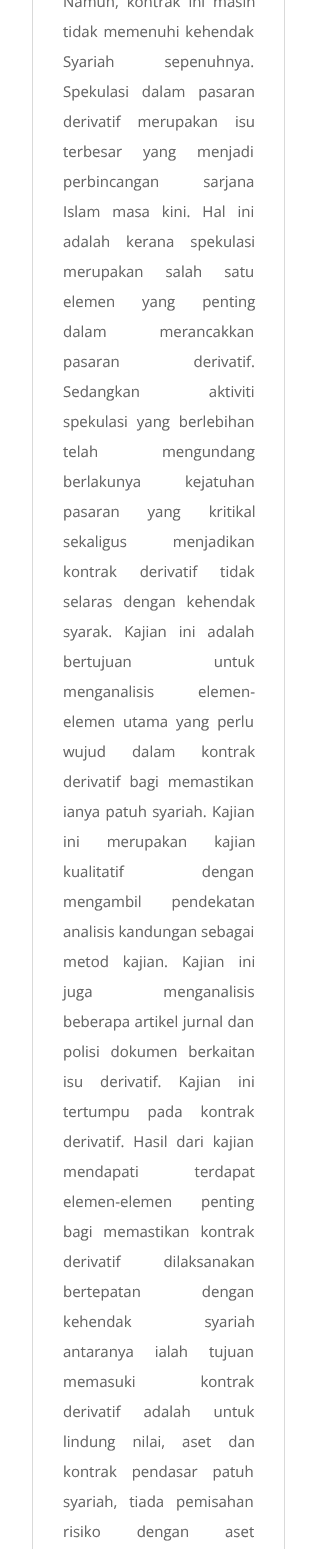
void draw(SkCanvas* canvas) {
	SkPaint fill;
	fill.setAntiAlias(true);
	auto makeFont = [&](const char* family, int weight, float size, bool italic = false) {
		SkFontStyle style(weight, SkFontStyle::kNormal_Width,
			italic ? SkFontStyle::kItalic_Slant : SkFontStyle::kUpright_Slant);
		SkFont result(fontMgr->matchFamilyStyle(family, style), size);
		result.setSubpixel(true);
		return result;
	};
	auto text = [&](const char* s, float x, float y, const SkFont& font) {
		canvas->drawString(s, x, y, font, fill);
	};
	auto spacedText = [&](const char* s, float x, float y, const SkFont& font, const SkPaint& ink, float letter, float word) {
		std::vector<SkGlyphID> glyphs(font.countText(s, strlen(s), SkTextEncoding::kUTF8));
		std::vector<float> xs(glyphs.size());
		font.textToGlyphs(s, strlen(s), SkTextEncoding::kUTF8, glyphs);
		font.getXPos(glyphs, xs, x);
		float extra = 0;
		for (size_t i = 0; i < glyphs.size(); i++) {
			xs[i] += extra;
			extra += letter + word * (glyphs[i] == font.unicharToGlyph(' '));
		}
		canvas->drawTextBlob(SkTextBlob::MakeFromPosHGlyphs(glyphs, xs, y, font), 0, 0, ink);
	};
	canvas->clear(0xFFFFFFFF);
	fill.setStyle(SkPaint::kStroke_Style);
	fill.setStrokeWidth(1);
	fill.setColor(0xFFD9D9D9);
	canvas->drawRect(SkRect::MakeLTRB(32.5f, -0.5f, 284.5f, 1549.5f), fill);
	auto font1 = makeFont("Open Sans", 400, 15);
	fill.setStyle(SkPaint::kFill_Style);
	fill.setColor(0xFF666666);
	spacedText("Namun, kontrak ini masih", 63, 7, font1, fill, 0, 4);
	spacedText("tidak memenuhi kehendak", 63, 37, font1, fill, 0, 2);
	spacedText("Syariah sepenuhnya.", 63, 67, font1, fill, 0, 46);
	spacedText("Spekulasi dalam pasaran", 63, 97, font1, fill, 0, 9);
	spacedText("derivatif merupakan isu", 63, 127, font1, fill, 0, 13);
	spacedText("terbesar yang menjadi", 63, 157, font1, fill, 0, 17);
	spacedText("perbincangan sarjana", 63, 187, font1, fill, 0, 40);
	spacedText("Islam masa kini. Hal ini", 63, 217, font1, fill, 0, 8);
	spacedText("adalah kerana spekulasi", 63, 247, font1, fill, 0, 12);
	spacedText("merupakan salah satu", 63, 277, font1, fill, 0, 18);
	spacedText("elemen yang penting", 63, 307, font1, fill, 0, 23);
	spacedText("dalam merancakkan", 63, 337, font1, fill, 0, 49);
	spacedText("pasaran derivatif.", 63, 367, font1, fill, 0, 70);
	spacedText("Sedangkan aktiviti", 63, 397, font1, fill, 0, 65);
	spacedText("spekulasi yang berlebihan", 63, 427, font1, fill, 0, 5);
	spacedText("telah mengundang", 63, 457, font1, fill, 0, 60);
	spacedText("berlakunya kejatuhan", 63, 487, font1, fill, 0, 40);
	spacedText("pasaran yang kritikal", 63, 517, font1, fill, 0, 24);
	spacedText("sekaligus menjadikan", 63, 547, font1, fill, 0, 42);
	spacedText("kontrak derivatif tidak", 63, 577, font1, fill, 0, 19);
	spacedText("selaras dengan kehendak", 63, 607, font1, fill, 0, 7);
	spacedText("syarak. Kajian ini adalah", 63, 637, font1, fill, 0, 8);
	spacedText("bertujuan untuk", 63, 667, font1, fill, 0, 78);
	spacedText("menganalisis elemen-", 63, 697, font1, fill, 0, 40);
	spacedText("elemen utama yang perlu", 63, 727, font1, fill, 0, 4);
	spacedText("wujud dalam kontrak", 63, 757, font1, fill, 0, 22);
	spacedText("derivatif bagi memastikan", 63, 787, font1, fill, 0, 5);
	spacedText("ianya patuh syariah. Kajian", 63, 817, font1, fill, 0, 1.5f);
	spacedText("ini merupakan kajian", 63, 847, font1, fill, 0, 23);
	spacedText("kualitatif dengan", 63, 877, font1, fill, 0, 74);
	spacedText("mengambil pendekatan", 63, 907, font1, fill, 0, 26);
	text("analisis kandungan sebagai", 63, 937, font1);
	spacedText("metod kajian. Kajian ini", 63, 967, font1, fill, 0, 10);
	spacedText("juga menganalisis", 63, 997, font1, fill, 0, 67);
	spacedText("beberapa artikel jurnal dan", 63, 1027, font1, fill, 0, 0.5f);
	spacedText("polisi dokumen berkaitan", 63, 1057, font1, fill, 0, 7);
	spacedText("isu derivatif. Kajian ini", 63, 1087, font1, fill, 0, 13);
	spacedText("tertumpu pada kontrak", 63, 1117, font1, fill, 0, 14);
	spacedText("derivatif. Hasil dari kajian", 63, 1147, font1, fill, 0, 5);
	spacedText("mendapati terdapat", 63, 1177, font1, fill, 0, 52);
	spacedText("elemen-elemen penting", 63, 1207, font1, fill, 0, 25);
	spacedText("bagi memastikan kontrak", 63, 1237, font1, fill, 0, 7);
	spacedText("derivatif dilaksanakan", 63, 1267, font1, fill, 0, 39);
	spacedText("bertepatan dengan", 63, 1297, font1, fill, 0, 57);
	spacedText("kehendak syariah", 63, 1327, font1, fill, 0, 69);
	spacedText("antaranya ialah tujuan", 63, 1357, font1, fill, 0, 17);
	spacedText("memasuki kontrak", 63, 1387, font1, fill, 0, 61);
	spacedText("derivatif adalah untuk", 63, 1417, font1, fill, 0, 19);
	spacedText("lindung nilai, aset dan", 63, 1447, font1, fill, 0, 13);
	spacedText("kontrak pendasar patuh", 63, 1477, font1, fill, 0, 11);
	spacedText("syariah, tiada pemisahan", 63, 1507, font1, fill, 0, 8);
	spacedText("risiko dengan aset", 63, 1537, font1, fill, 0, 32);
}
